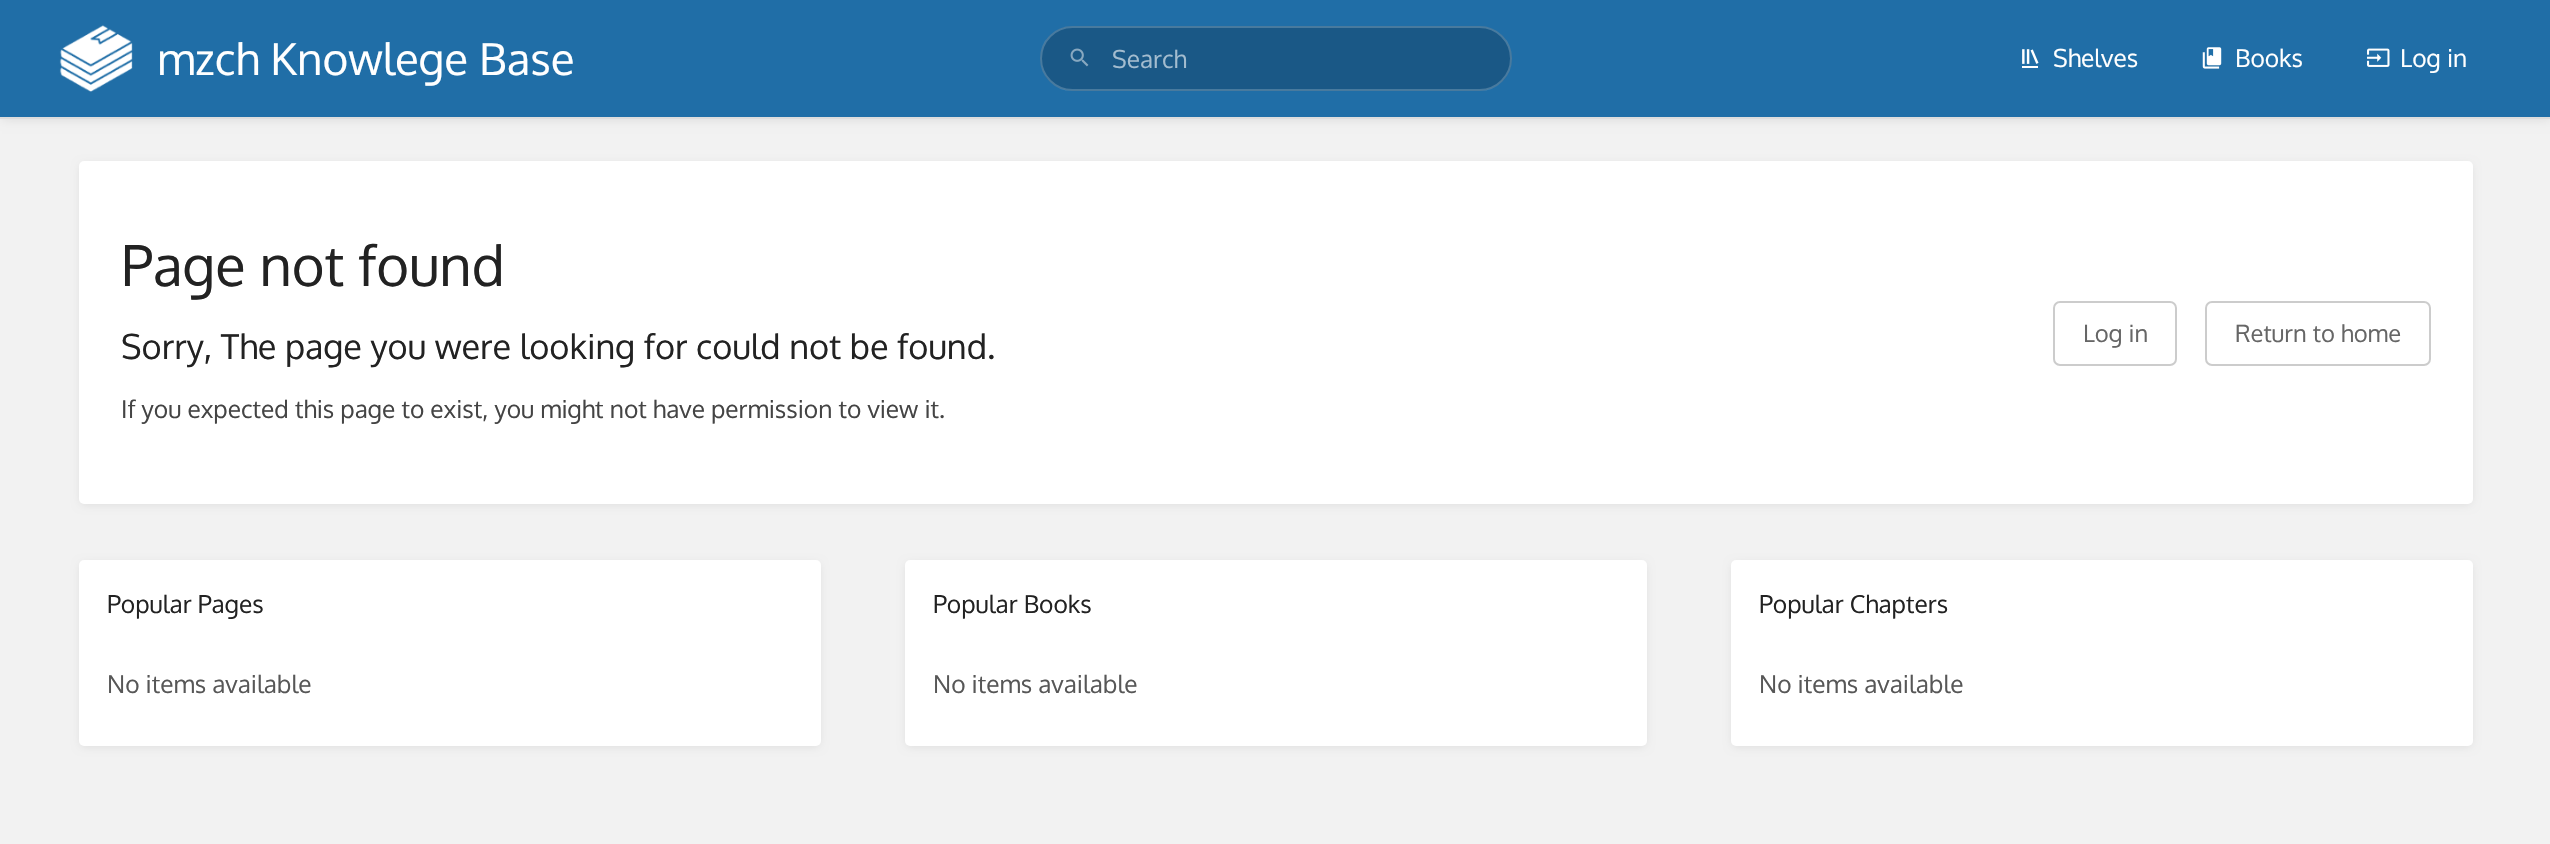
void draw(SkCanvas* canvas) {
	SkPaint fill;
	fill.setAntiAlias(true);
	auto makeFont = [&](const char* family, int weight, float size, bool italic = false) {
		SkFontStyle style(weight, SkFontStyle::kNormal_Width,
			italic ? SkFontStyle::kItalic_Slant : SkFontStyle::kUpright_Slant);
		SkFont result(fontMgr->matchFamilyStyle(family, style), size);
		result.setSubpixel(true);
		return result;
	};
	auto text = [&](const char* s, float x, float y, const SkFont& font) {
		canvas->drawString(s, x, y, font, fill);
	};
	auto box = [&](float l, float t, float r, float b) {
		canvas->drawRect(SkRect::MakeLTRB(l, t, r, b), fill);
	};
	auto roundBox = [&](float l, float t, float r, float b, float radius) {
		canvas->drawRoundRect(SkRect::MakeLTRB(l, t, r, b), radius, radius, fill);
	};
	auto picture = [&](const char* path, float l, float t, float r, float b) {
		auto image = SkImages::DeferredFromEncodedData(SkData::MakeFromFileName(path));
		canvas->drawImageRect(image, SkRect::MakeLTRB(l, t, r, b), SkSamplingOptions());
	};
	canvas->clear(0xFFF2F2F2);
	fill.setColor(0x1A000000);
	fill.setMaskFilter(SkMaskFilter::MakeBlur(kNormal_SkBlurStyle, 5));
	canvas->drawRect(SkRect::MakeLTRB(2, 4, 2550, 119), fill);
	fill.setMaskFilter(nullptr);
	fill.setColor(0xFF206EA7);
	box(0, 0, 2550, 117);
	fill.setColor(0xFFDDDDDD);
	box(0, 117, 2550, 119);
	picture("image0.png", 59, 25, 133, 92);
	fill.setColor(0xFF1A5886);
	roundBox(1040, 26, 1512, 91, 32.5f);
	fill.setStyle(SkPaint::kStroke_Style);
	fill.setStrokeWidth(2);
	fill.setColor(0x33FFFFFF);
	canvas->drawRoundRect(SkRect::MakeLTRB(1041, 27, 1511, 90), 31.5f, 31.5f, fill);
	picture("image1.png", 1070, 48, 1089, 67);
	picture("image2.png", 2022, 49, 2039, 68);
	picture("image3.png", 2202, 47, 2222, 69);
	picture("image4.png", 2367, 48, 2390, 67);
	fill.setStyle(SkPaint::kFill_Style);
	fill.setColor(0x1A000000);
	fill.setMaskFilter(SkMaskFilter::MakeBlur(kNormal_SkBlurStyle, 5));
	canvas->drawRoundRect(SkRect::MakeLTRB(81, 165, 2471, 504), 4, 4, fill);
	fill.setMaskFilter(nullptr);
	fill.setColor(0xFFFFFFFF);
	roundBox(79, 161, 2473, 504, 5);
	fill.setStyle(SkPaint::kStroke_Style);
	fill.setColor(0xFFCCCCCC);
	canvas->drawRoundRect(SkRect::MakeLTRB(2054, 302, 2176, 365), 6, 6, fill);
	canvas->drawRoundRect(SkRect::MakeLTRB(2206, 302, 2430, 365), 6, 6, fill);
	fill.setStyle(SkPaint::kFill_Style);
	fill.setColor(0x1A000000);
	fill.setMaskFilter(SkMaskFilter::MakeBlur(kNormal_SkBlurStyle, 5));
	canvas->drawRoundRect(SkRect::MakeLTRB(81, 564, 819, 746), 4, 4, fill);
	fill.setMaskFilter(nullptr);
	fill.setColor(0xFFFFFFFF);
	roundBox(79, 560, 821, 746, 5);
	fill.setColor(0x1A000000);
	fill.setMaskFilter(SkMaskFilter::MakeBlur(kNormal_SkBlurStyle, 5));
	canvas->drawRoundRect(SkRect::MakeLTRB(907, 564, 1645, 746), 4, 4, fill);
	fill.setMaskFilter(nullptr);
	fill.setColor(0xFFFFFFFF);
	roundBox(905, 560, 1647, 746, 5);
	fill.setColor(0x1A000000);
	fill.setMaskFilter(SkMaskFilter::MakeBlur(kNormal_SkBlurStyle, 5));
	canvas->drawRoundRect(SkRect::MakeLTRB(1733, 564, 2471, 746), 4, 4, fill);
	fill.setMaskFilter(nullptr);
	fill.setColor(0xFFFFFFFF);
	roundBox(1731, 560, 2473, 746, 5);
	auto font1 = makeFont("Oxygen", 400, 44);
	text("mzch Knowlege Base", 157, 75, font1);
	auto font2 = makeFont("Oxygen", 400, 24.5f);
	fill.setColor(0xFFA3BCCF);
	text("Search", 1112, 68, font2);
	fill.setColor(0xFFFFFFFF);
	text("Shelves", 2053, 67, font2);
	text("Books", 2235, 67, font2);
	text("Log in", 2400, 67, font2);
	auto font3 = makeFont("Oxygen", 400, 56);
	fill.setColor(0xFF222222);
	text("Page not found", 121, 286, font3);
	auto font4 = makeFont("Oxygen", 400, 34.3f);
	text("Sorry, The page you were looking for could not be found.", 121, 359, font4);
	fill.setColor(0xFF444444);
	text("If you expected this page to exist, you might not have permission to view it.", 121, 418, font2);
	auto font5 = makeFont("Oxygen", 400, 23.75f);
	fill.setColor(0xFF666666);
	text("Log in", 2083, 342, font5);
	text("Return to home", 2235, 342, font5);
	fill.setColor(0xFF222222);
	text("Popular Pages", 107, 613, font2);
	fill.setColor(0xFF575757);
	text("No items available", 107, 693, font2);
	fill.setColor(0xFF222222);
	text("Popular Books", 933, 613, font2);
	fill.setColor(0xFF575757);
	text("No items available", 933, 693, font2);
	fill.setColor(0xFF222222);
	text("Popular Chapters", 1759, 613, font2);
	fill.setColor(0xFF575757);
	text("No items available", 1759, 693, font2);
}
